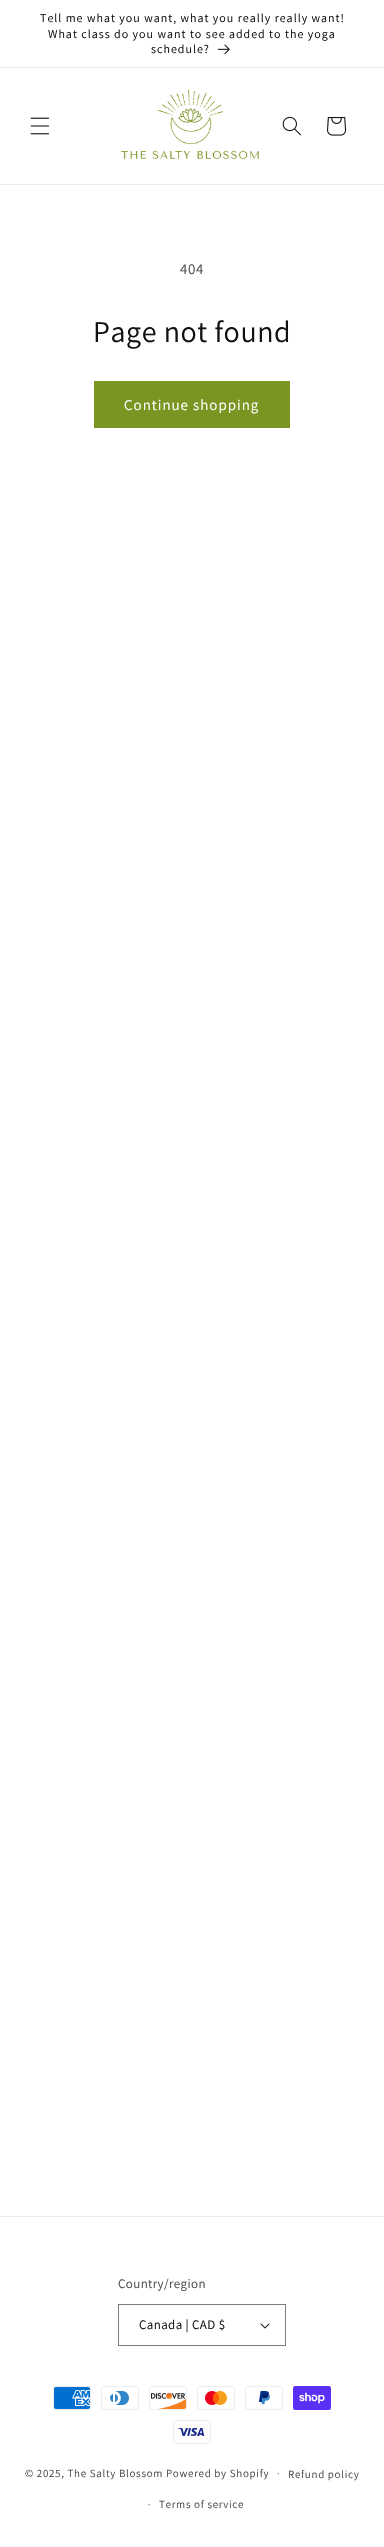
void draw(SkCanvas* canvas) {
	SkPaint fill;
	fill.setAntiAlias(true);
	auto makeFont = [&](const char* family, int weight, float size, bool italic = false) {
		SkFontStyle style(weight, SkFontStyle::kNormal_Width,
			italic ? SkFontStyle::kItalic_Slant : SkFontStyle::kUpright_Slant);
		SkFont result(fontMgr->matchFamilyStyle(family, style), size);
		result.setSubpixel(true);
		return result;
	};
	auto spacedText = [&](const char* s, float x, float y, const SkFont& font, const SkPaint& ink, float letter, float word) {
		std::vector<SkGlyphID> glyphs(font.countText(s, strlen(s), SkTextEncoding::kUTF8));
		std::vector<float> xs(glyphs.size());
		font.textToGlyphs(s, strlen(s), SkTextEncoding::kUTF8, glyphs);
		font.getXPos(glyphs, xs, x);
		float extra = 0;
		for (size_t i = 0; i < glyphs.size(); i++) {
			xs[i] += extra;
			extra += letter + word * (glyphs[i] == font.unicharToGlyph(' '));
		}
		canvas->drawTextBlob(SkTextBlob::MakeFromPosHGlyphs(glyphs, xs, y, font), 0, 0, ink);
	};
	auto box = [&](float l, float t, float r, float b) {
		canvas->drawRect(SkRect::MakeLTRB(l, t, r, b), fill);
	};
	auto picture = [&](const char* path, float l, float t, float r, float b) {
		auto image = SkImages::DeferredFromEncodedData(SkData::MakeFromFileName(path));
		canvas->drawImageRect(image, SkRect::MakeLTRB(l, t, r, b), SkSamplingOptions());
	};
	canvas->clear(0xFFFFFFFF);
	fill.setColor(0xFFECECEC);
	box(0, 67, 384, 68);
	picture("image0.png", 218, 44, 230, 55);
	box(0, 184, 384, 185);
	picture("image1.png", 30, 117, 50, 135);
	picture("image2.png", 121, 89, 259, 160);
	picture("image3.png", 282, 116, 301, 136);
	picture("image4.png", 327, 117, 347, 136);
	fill.setColor(0xFF7A9521);
	box(94, 381, 290, 428);
	fill.setColor(0xFFECECEC);
	box(0, 2216, 384, 2217);
	picture("image5.png", 260, 2323, 270, 2329);
	fill.setStyle(SkPaint::kStroke_Style);
	fill.setStrokeWidth(1);
	fill.setColor(0xFF7D7D7D);
	canvas->drawRect(SkRect::MakeLTRB(118.5f, 2304.5f, 285.5f, 2345.5f), fill);
	picture("image6.png", 53, 2386, 91, 2410);
	picture("image7.png", 101, 2386, 139, 2410);
	picture("image8.png", 149, 2386, 187, 2410);
	picture("image9.png", 197, 2386, 235, 2410);
	picture("image10.png", 245, 2386, 283, 2410);
	picture("image11.png", 293, 2386, 331, 2410);
	picture("image12.png", 173, 2420, 211, 2444);
	auto font1 = makeFont("Assistant", 400, 12);
	fill.setStyle(SkPaint::kFill_Style);
	fill.setColor(0xFF121212);
	spacedText("Tell me what you want, what you really really want!", 40, 22, font1, fill, 1, 0);
	spacedText("What class do you want to see added to the yoga", 48, 38, font1, fill, 1, 0);
	spacedText("schedule?", 151, 53, font1, fill, 1, 0);
	auto font2 = makeFont("Assistant", 400, 15);
	fill.setColor(0xFF4D4D4D);
	spacedText("404", 180, 274, font2, fill, 0.6f, 0);
	auto font3 = makeFont("Assistant", 400, 30);
	fill.setColor(0xFF121212);
	spacedText("Page not found", 93, 342, font3, fill, 0.6f, 0);
	fill.setColor(0xFFFFFFFF);
	spacedText("Continue shopping", 124, 410, font2, fill, 1, 0);
	auto font4 = makeFont("Assistant", 400, 13);
	fill.setColor(0xFF4D4D4D);
	spacedText("Country/region", 118, 2288, font4, fill, 0.4f, 0);
	fill.setColor(0xFF121212);
	spacedText("Canada | CAD $", 139, 2329, font4, fill, 0.4f, 0);
	auto font5 = makeFont("Assistant", 400, 11);
	fill.setColor(0xFF4D4D4D);
	spacedText("© 2025, The Salty Blossom Powered by Shopify", 25, 2477, font5, fill, 0.7f, 0);
	auto font6 = makeFont("Assistant", 400, 10);
	spacedText("·", 277, 2477, font6, fill, 0.7f, 0);
	spacedText("Refund policy", 288, 2478, font5, fill, 0.7f, 0);
	spacedText("·", 148, 2508, font6, fill, 0.7f, 0);
	spacedText("Terms of service", 159, 2508, font5, fill, 0.7f, 0);
}
